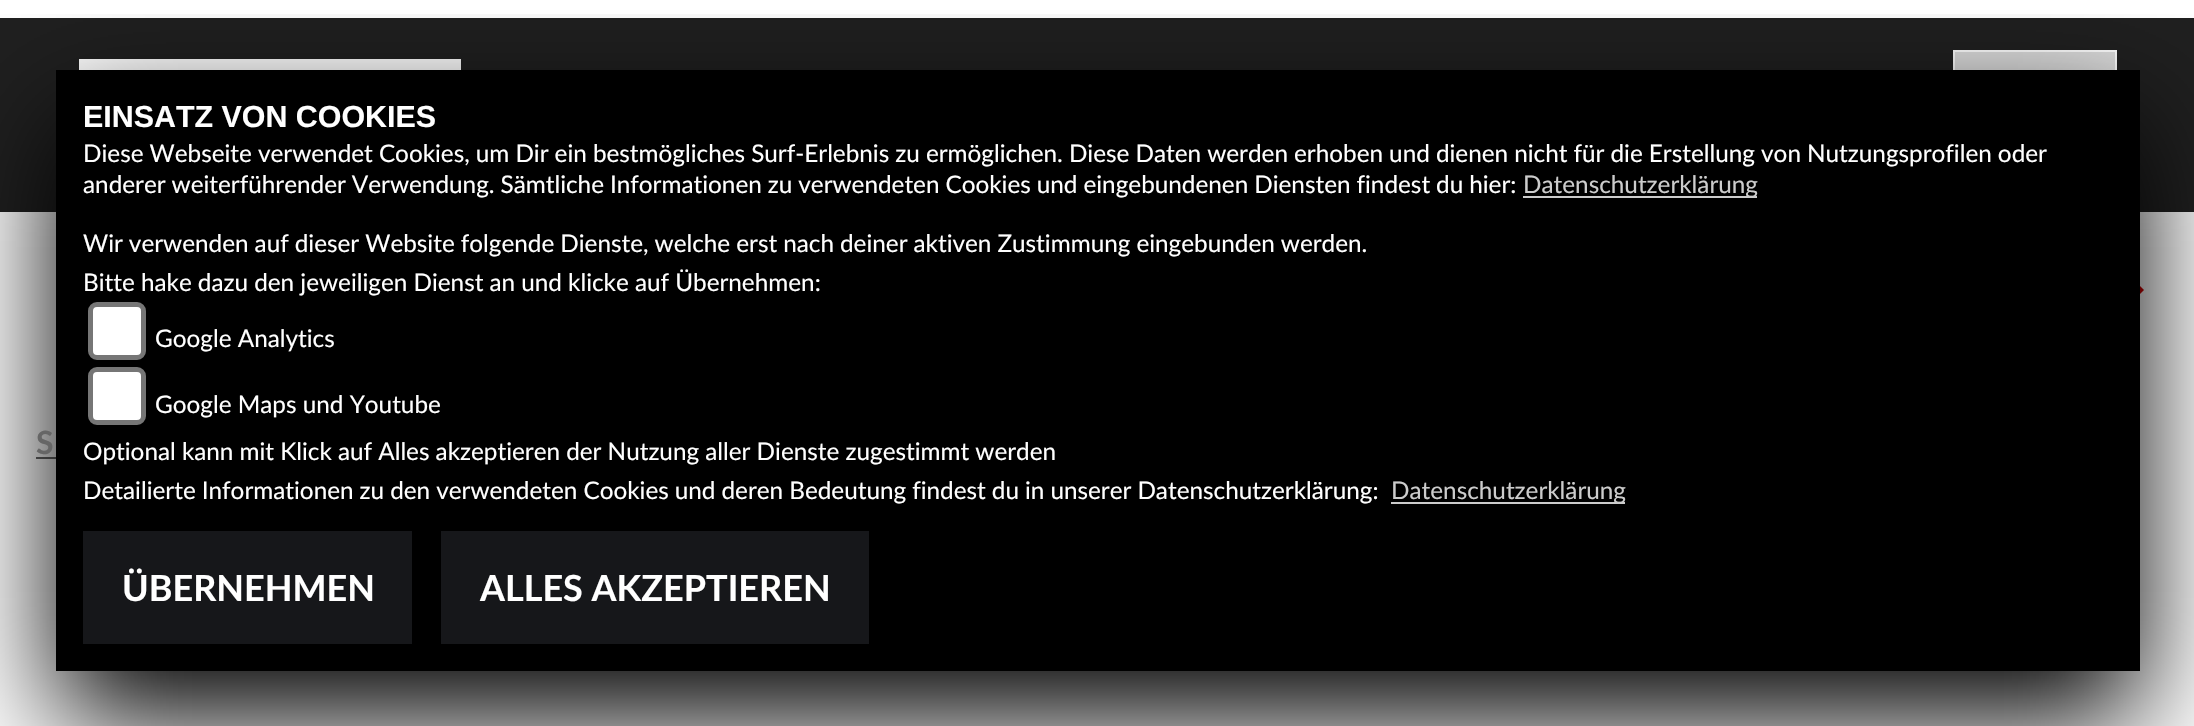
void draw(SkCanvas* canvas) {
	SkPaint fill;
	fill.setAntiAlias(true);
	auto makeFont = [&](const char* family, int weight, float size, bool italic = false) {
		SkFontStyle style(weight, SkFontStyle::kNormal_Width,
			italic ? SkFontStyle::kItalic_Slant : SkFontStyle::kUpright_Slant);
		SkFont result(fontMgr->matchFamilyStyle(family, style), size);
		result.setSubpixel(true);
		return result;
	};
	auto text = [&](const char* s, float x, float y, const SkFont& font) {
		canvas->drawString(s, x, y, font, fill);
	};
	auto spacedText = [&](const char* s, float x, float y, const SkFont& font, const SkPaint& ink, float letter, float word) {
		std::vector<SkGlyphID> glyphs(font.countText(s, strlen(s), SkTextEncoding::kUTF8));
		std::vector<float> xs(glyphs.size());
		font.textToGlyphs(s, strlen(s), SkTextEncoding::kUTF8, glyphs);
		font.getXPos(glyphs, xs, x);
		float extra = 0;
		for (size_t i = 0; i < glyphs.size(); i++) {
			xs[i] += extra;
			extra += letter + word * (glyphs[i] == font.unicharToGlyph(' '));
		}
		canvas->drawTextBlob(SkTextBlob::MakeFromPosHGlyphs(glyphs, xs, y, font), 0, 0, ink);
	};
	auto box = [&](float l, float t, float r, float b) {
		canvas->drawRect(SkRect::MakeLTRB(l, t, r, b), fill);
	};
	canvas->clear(0xFFFFFFFF);
	fill.setColor(0xFF1F1F1F);
	box(0, 18, 2194, 212);
	fill.setColor(0xFFFFFFFF);
	box(79, 59, 461, 70);
	fill.setColor(0xFFDDDDDD);
	box(1955, 52, 2115, 70);
	fill.setStyle(SkPaint::kStroke_Style);
	fill.setStrokeWidth(2);
	fill.setColor(0xFFFFFFFF);
	canvas->drawRect(SkRect::MakeLTRB(1954, 51, 2116, 179), fill);
	fill.setStyle(SkPaint::kFill_Style);
	fill.setColor(0xFFCC0000);
	canvas->drawPath(SkPathBuilder().moveTo(2074, 220).lineTo(2144, 290).lineTo(2074, 360).lineTo(2004, 290).close().detach(), fill);
	fill.setColor(0xFF666666);
	box(36, 457, 56, 459);
	canvas->save();
	canvas->clipRect(SkRect::MakeLTRB(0, 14, 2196, 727));
	fill.setColor(0xFF000000);
	fill.setMaskFilter(SkMaskFilter::MakeBlur(kNormal_SkBlurStyle, 56));
	canvas->drawRect(SkRect::MakeLTRB(56, 119, 2140, 720), fill);
	fill.setMaskFilter(nullptr);
	canvas->restore();
	box(56, 70, 2140, 671);
	fill.setColor(0xFFCCCCCC);
	box(1523, 196, 1757, 198);
	fill.setColor(0xFFFFFFFF);
	canvas->drawRoundRect(SkRect::MakeLTRB(90.5f, 304.5f, 143.5f, 357.5f), 6.5f, 6.5f, fill);
	fill.setStyle(SkPaint::kStroke_Style);
	fill.setStrokeWidth(5);
	fill.setColor(0xFF767676);
	canvas->drawRoundRect(SkRect::MakeLTRB(90.5f, 304.5f, 143.5f, 357.5f), 6.5f, 6.5f, fill);
	fill.setStyle(SkPaint::kFill_Style);
	fill.setColor(0xFFFFFFFF);
	canvas->drawRoundRect(SkRect::MakeLTRB(90.5f, 369.5f, 143.5f, 422.5f), 6.5f, 6.5f, fill);
	fill.setStyle(SkPaint::kStroke_Style);
	fill.setColor(0xFF767676);
	canvas->drawRoundRect(SkRect::MakeLTRB(90.5f, 369.5f, 143.5f, 422.5f), 6.5f, 6.5f, fill);
	fill.setStyle(SkPaint::kFill_Style);
	fill.setColor(0xFFCCCCCC);
	box(1391, 502, 1625, 504);
	fill.setColor(0xFF16171A);
	box(83, 531, 412, 644);
	box(441, 531, 869, 644);
	auto font1 = makeFont("Liberation Sans", 700, 30.4f);
	fill.setColor(0xFFFFFFFF);
	text("EINSATZ VON COOKIES", 83, 127, font1);
	auto font2 = makeFont("Lato", 400, 24.3f);
	spacedText("Diese Webseite verwendet Cookies, um Dir ein bestmögliches Surf-Erlebnis zu ermöglichen. Diese Daten werden erhoben und dienen nicht für die Erstellung von Nutzungsprofilen oder", 83, 162, font2, fill, 0, -0.15f);
	spacedText("anderer weiterführender Verwendung. Sämtliche Informationen zu verwendeten Cookies und eingebundenen Diensten findest du hier:", 83, 193, font2, fill, 0, -0.25f);
	fill.setColor(0xFFCCCCCC);
	text("Datenschutzerklärung", 1523, 193, font2);
	fill.setColor(0xFFFFFFFF);
	spacedText("Wir verwenden auf dieser Website folgende Dienste, welche erst nach deiner aktiven Zustimmung eingebunden werden.", 83, 252, font2, fill, 0, -0.2f);
	spacedText("Bitte hake dazu den jeweiligen Dienst an und klicke auf Übernehmen:", 83, 291, font2, fill, 0, -0.1f);
	text("Google Analytics", 155, 347, font2);
	text("Google Maps und Youtube", 155, 413, font2);
	spacedText("Optional kann mit Klick auf Alles akzeptieren der Nutzung aller Dienste zugestimmt werden", 83, 460, font2, fill, 0, -0.1f);
	spacedText("Detailierte Informationen zu den verwendeten Cookies und deren Bedeutung findest du in unserer Datenschutzerklärung:", 83, 499, font2, fill, 0, -0.2f);
	fill.setColor(0xFFCCCCCC);
	text("Datenschutzerklärung", 1391, 499, font2);
	auto font3 = makeFont("Lato", 700, 36);
	fill.setColor(0xFFFFFFFF);
	text("ÜBERNEHMEN", 122, 601, font3);
	text("ALLES AKZEPTIEREN", 480, 601, font3);
	auto font4 = makeFont("Lato", 700, 32);
	fill.setColor(0xFF666666);
	text("S", 36, 454, font4);
}
